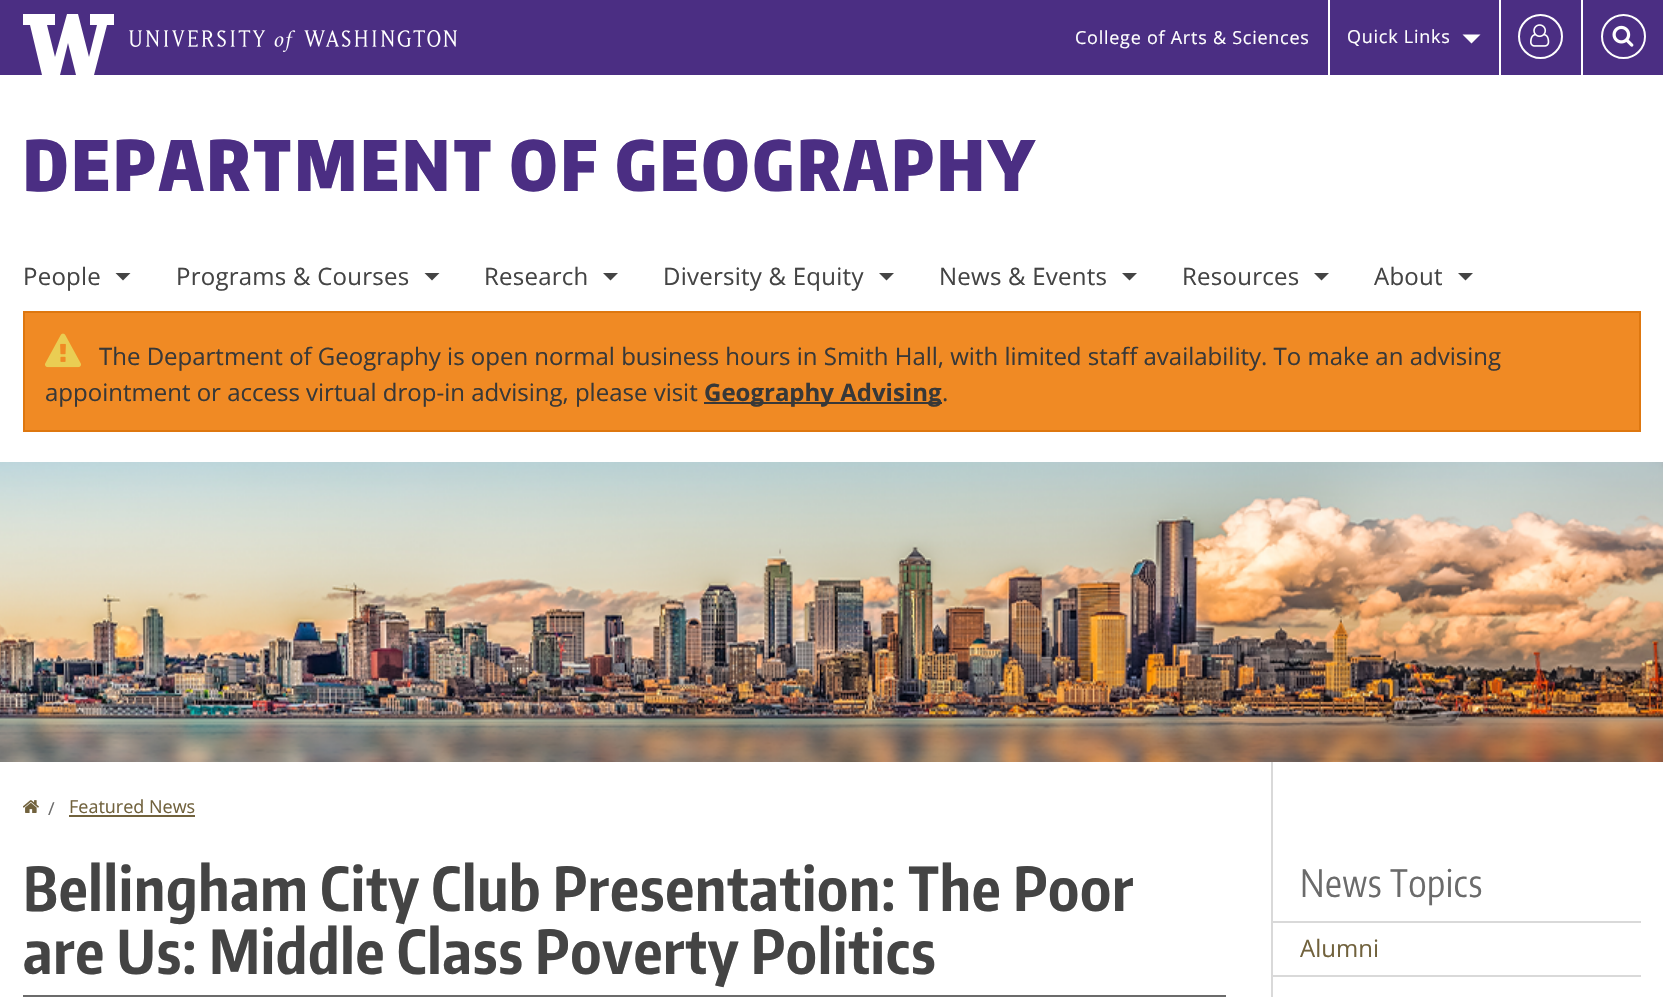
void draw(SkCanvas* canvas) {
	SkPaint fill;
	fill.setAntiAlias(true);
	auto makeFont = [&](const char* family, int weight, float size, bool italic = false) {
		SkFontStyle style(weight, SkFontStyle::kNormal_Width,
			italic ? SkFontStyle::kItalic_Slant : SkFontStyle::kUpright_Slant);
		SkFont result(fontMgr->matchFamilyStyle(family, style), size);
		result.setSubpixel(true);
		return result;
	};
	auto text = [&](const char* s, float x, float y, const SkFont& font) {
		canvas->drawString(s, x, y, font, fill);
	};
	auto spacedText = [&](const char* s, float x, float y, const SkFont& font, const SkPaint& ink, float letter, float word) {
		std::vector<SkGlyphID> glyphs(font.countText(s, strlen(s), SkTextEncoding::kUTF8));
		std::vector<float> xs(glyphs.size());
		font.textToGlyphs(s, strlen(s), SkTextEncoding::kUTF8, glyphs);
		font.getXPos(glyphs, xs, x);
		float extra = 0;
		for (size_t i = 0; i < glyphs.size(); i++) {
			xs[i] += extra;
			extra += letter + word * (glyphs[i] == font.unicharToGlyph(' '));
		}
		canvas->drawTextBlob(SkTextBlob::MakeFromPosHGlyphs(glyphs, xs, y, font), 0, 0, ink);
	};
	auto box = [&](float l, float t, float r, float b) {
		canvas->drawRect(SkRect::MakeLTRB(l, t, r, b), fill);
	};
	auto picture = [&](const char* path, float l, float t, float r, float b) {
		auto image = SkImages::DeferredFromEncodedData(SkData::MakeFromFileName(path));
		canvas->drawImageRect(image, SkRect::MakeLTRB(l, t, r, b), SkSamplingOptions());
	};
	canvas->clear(0xFFFFFFFF);
	fill.setColor(0xFF4B2E83);
	box(0, 0, 1663, 75);
	canvas->save();
	canvas->clipRect(SkRect::MakeLTRB(23, 14, 114, 75));
	fill.setColor(0xFFFFFFFF);
	canvas->drawPath(SkPathBuilder().moveTo(90, 14).lineTo(90, 25).lineTo(97, 25).lineTo(89, 57).lineTo(78, 14).lineTo(67, 14).lineTo(55, 57).lineTo(47, 25).lineTo(55, 25).lineTo(55, 14).lineTo(22, 14).lineTo(22, 25).lineTo(30, 25).lineTo(42, 75).lineTo(60, 75).lineTo(68, 43).lineTo(76, 75).lineTo(94, 75).lineTo(107, 25).lineTo(114, 25).lineTo(114, 14).close().detach(), fill);
	canvas->restore();
	picture("image0.png", 129, 30, 457, 52);
	box(1328, 0, 1330, 75);
	canvas->drawPath(SkPathBuilder().moveTo(1462.5f, 34.5f).lineTo(1480.5f, 34.5f).lineTo(1471.5f, 43.5f).close().detach(), fill);
	box(1499, 0, 1501, 75);
	fill.setStyle(SkPaint::kStroke_Style);
	fill.setStrokeWidth(2);
	canvas->drawCircle(1540.5f, 36.5f, 21.5f, fill);
	picture("image1.png", 1530, 24, 1550, 47);
	fill.setStyle(SkPaint::kFill_Style);
	box(1581, 0, 1583, 75);
	fill.setStyle(SkPaint::kStroke_Style);
	canvas->drawCircle(1623.5f, 36.5f, 21.5f, fill);
	picture("image2.png", 1612, 25, 1634, 47);
	fill.setStyle(SkPaint::kFill_Style);
	fill.setColor(0xFF444444);
	canvas->drawPath(SkPathBuilder().moveTo(115.5f, 273).lineTo(130.5f, 273).lineTo(123, 280.5f).close().detach(), fill);
	canvas->drawPath(SkPathBuilder().moveTo(424.5f, 273).lineTo(439.5f, 273).lineTo(432, 280.5f).close().detach(), fill);
	canvas->drawPath(SkPathBuilder().moveTo(603, 273).lineTo(618, 273).lineTo(610.5f, 280.5f).close().detach(), fill);
	canvas->drawPath(SkPathBuilder().moveTo(879, 273).lineTo(894, 273).lineTo(886.5f, 280.5f).close().detach(), fill);
	canvas->drawPath(SkPathBuilder().moveTo(1122, 273).lineTo(1137, 273).lineTo(1129.5f, 280.5f).close().detach(), fill);
	canvas->drawPath(SkPathBuilder().moveTo(1314, 273).lineTo(1329, 273).lineTo(1321.5f, 280.5f).close().detach(), fill);
	canvas->drawPath(SkPathBuilder().moveTo(1458, 273).lineTo(1473, 273).lineTo(1465.5f, 280.5f).close().detach(), fill);
	fill.setColor(0xFFF08A24);
	canvas->drawRect(SkRect::MakeLTRB(24, 312, 1640, 431), fill);
	fill.setStyle(SkPaint::kStroke_Style);
	fill.setColor(0xFFDE770F);
	canvas->drawRect(SkRect::MakeLTRB(24, 312, 1640, 431), fill);
	picture("image3.png", 45, 333, 81, 368);
	fill.setStyle(SkPaint::kFill_Style);
	fill.setColor(0xFF383838);
	box(704, 402, 942, 404);
	picture("image4.png", 0, 462, 1663, 762);
	picture("image5.png", 23, 800, 39, 813);
	fill.setColor(0xFF71623D);
	box(69, 815, 195, 817);
	fill.setColor(0xFF6B6B6B);
	box(23, 995, 1226, 997);
	fill.setColor(0xFFD9D9D9);
	box(1271, 762, 1273, 997);
	box(1272, 921, 1641, 923);
	box(1272, 975, 1641, 977);
	auto font1 = makeFont("Open Sans", 400, 18);
	fill.setColor(0xFFFFFFFF);
	spacedText("College of Arts & Sciences", 1075, 44, font1, fill, 0.75f, 0);
	spacedText("Quick Links", 1347, 43, font1, fill, 0.75f, 0);
	auto font2 = makeFont("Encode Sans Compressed", 900, 69);
	fill.setColor(0xFF4B2E83);
	spacedText("DEPARTMENT OF GEOGRAPHY", 23, 191, font2, fill, 3.45f, 0);
	auto font3 = makeFont("Open Sans", 400, 24);
	fill.setColor(0xFF444444);
	spacedText("People", 23, 285, font3, fill, 0.25f, 0);
	spacedText("Programs & Courses", 176, 285, font3, fill, 0.25f, 0);
	spacedText("Research", 484, 285, font3, fill, 0.25f, 0);
	spacedText("Diversity & Equity", 663, 285, font3, fill, 0.25f, 0);
	spacedText("News & Events", 939, 285, font3, fill, 0.25f, 0);
	spacedText("Resources", 1182, 285, font3, fill, 0.25f, 0);
	spacedText("About", 1374, 285, font3, fill, 0.25f, 0);
	fill.setColor(0xFF383838);
	text("The Department of Geography is open normal business hours in Smith Hall, with limited staff availability. To make an advising", 99, 365, font3);
	text("appointment or access virtual drop-in advising, please visit", 45, 401, font3);
	auto font4 = makeFont("Open Sans", 700, 24);
	text("Geography Advising", 704, 401, font4);
	text(".", 942, 401, font3);
	fill.setColor(0xFF6B6B6B);
	text("/", 48, 815, font1);
	fill.setColor(0xFF71623D);
	text("Featured News", 69, 813, font1);
	auto font5 = makeFont("Encode Sans Compressed", 700, 60);
	fill.setColor(0xFF444444);
	spacedText("Bellingham City Club Presentation: The Poor", 23, 911, font5, fill, 0.75f, 0);
	spacedText("are Us: Middle Class Poverty Politics", 23, 974, font5, fill, 0.75f, 0);
	auto font6 = makeFont("Encode Sans Compressed", 400, 37.5f);
	fill.setColor(0xFF6B6B6B);
	spacedText("News Topics", 1300, 897, font6, fill, 0.5f, 0);
	fill.setColor(0xFF71623D);
	text("Alumni", 1300, 957, font3);
}
